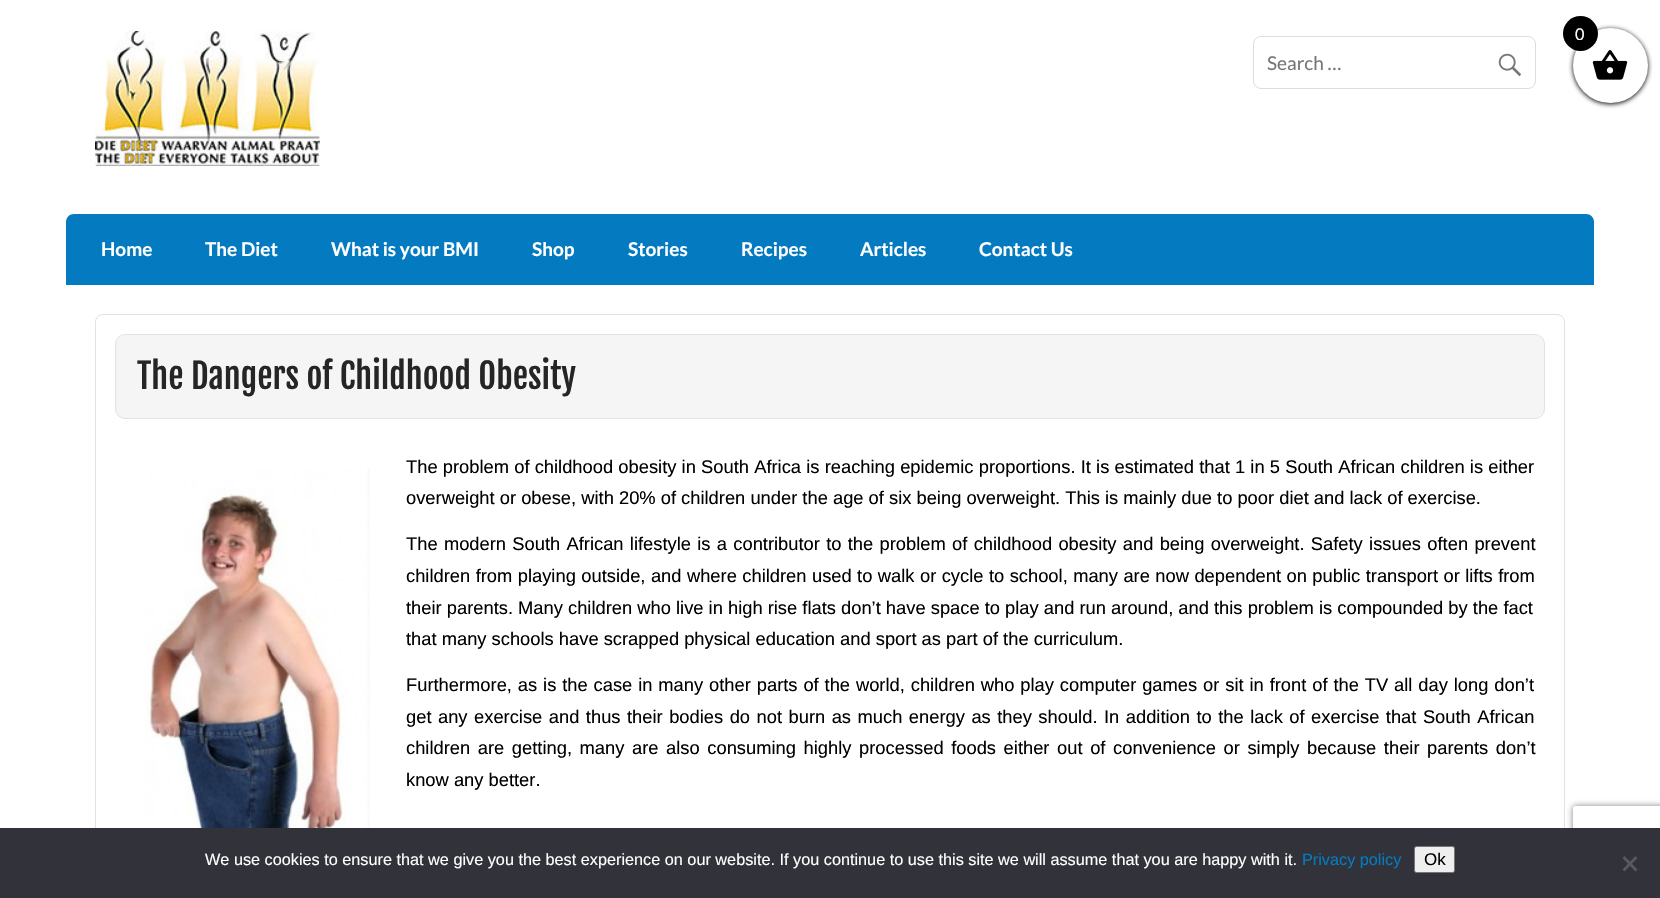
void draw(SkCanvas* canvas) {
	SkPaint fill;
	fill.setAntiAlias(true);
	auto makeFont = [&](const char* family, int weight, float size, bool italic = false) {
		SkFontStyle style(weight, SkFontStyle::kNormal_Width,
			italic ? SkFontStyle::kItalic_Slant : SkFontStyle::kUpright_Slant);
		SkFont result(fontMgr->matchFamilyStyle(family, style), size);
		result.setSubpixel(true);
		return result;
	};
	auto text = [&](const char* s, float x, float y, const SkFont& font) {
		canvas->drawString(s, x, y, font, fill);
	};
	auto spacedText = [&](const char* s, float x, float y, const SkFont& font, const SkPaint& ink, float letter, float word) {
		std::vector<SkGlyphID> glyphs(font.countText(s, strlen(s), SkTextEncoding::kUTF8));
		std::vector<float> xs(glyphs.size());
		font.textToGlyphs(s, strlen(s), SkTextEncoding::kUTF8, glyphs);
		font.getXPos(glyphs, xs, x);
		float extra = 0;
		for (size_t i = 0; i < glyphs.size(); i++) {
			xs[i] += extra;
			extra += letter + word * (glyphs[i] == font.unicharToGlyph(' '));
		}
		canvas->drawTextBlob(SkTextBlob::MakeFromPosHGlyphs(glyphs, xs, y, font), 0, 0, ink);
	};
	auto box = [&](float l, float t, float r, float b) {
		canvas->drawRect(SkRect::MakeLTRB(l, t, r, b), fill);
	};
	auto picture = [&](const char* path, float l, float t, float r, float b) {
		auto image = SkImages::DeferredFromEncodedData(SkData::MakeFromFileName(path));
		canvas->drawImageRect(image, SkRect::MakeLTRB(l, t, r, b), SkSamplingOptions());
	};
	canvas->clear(0xFFFFFFFF);
	fill.setColor(0xFF000000);
	fill.setMaskFilter(SkMaskFilter::MakeBlur(kNormal_SkBlurStyle, 2.5f));
	canvas->drawRoundRect(SkRect::MakeLTRB(1573, 29, 1648, 104), 37.5f, 37.5f, fill);
	fill.setMaskFilter(nullptr);
	fill.setColor(0xFFFFFFFF);
	canvas->drawCircle(1610.5f, 65.5f, 37.5f, fill);
	picture("image0.png", 1592, 50, 1628, 80);
	fill.setColor(0xFF000000);
	canvas->drawCircle(1580.5f, 33.5f, 17.5f, fill);
	picture("image1.png", 95, 31, 320, 166);
	fill.setStyle(SkPaint::kStroke_Style);
	fill.setStrokeWidth(1);
	fill.setColor(0xFFDDDDDD);
	canvas->drawRoundRect(SkRect::MakeLTRB(1253.5f, 36.5f, 1535.5f, 88.5f), 7.5f, 7.5f, fill);
	picture("image2.png", 1498, 53, 1522, 77);
	fill.setStyle(SkPaint::kFill_Style);
	fill.setColor(0xFF047BC1);
	canvas->drawPath(SkPathBuilder().moveTo(74, 214).lineTo(1586, 214).cubicTo(1590.5f, 214, 1594, 217.5f, 1594, 222).lineTo(1594, 285).lineTo(66, 285).lineTo(66, 222).cubicTo(66, 217.5f, 69.5f, 214, 74, 214).close().detach(), fill);
	fill.setStyle(SkPaint::kStroke_Style);
	fill.setColor(0xFFE2E2E2);
	canvas->drawRoundRect(SkRect::MakeLTRB(95.5f, 314.5f, 1564.5f, 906.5f), 7.5f, 7.5f, fill);
	fill.setStyle(SkPaint::kFill_Style);
	fill.setColor(0xFFF5F5F5);
	canvas->drawRoundRect(SkRect::MakeLTRB(115.5f, 334.5f, 1544.5f, 418.5f), 9.5f, 9.5f, fill);
	fill.setStyle(SkPaint::kStroke_Style);
	fill.setColor(0xFFE2E2E2);
	canvas->drawRoundRect(SkRect::MakeLTRB(115.5f, 334.5f, 1544.5f, 418.5f), 9.5f, 9.5f, fill);
	picture("image3.png", 145, 468, 370, 828);
	canvas->save();
	canvas->clipPath(SkPathBuilder(SkPathFillType::kEvenOdd).moveTo(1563, 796).lineTo(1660, 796).lineTo(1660, 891).lineTo(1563, 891).close().moveTo(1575.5f, 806).lineTo(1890.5f, 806).cubicTo(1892, 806, 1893, 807, 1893, 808.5f).lineTo(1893, 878.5f).cubicTo(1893, 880, 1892, 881, 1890.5f, 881).lineTo(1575.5f, 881).cubicTo(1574, 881, 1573, 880, 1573, 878.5f).lineTo(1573, 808.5f).cubicTo(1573, 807, 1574, 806, 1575.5f, 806).close().detach(), true);
	fill.setStyle(SkPaint::kFill_Style);
	fill.setColor(0xFF808080);
	fill.setMaskFilter(SkMaskFilter::MakeBlur(kNormal_SkBlurStyle, 3));
	canvas->drawRoundRect(SkRect::MakeLTRB(1573, 806, 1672, 881), 2.5f, 2.5f, fill);
	fill.setMaskFilter(nullptr);
	canvas->restore();
	fill.setColor(0xFF32323A);
	box(0, 828, 1660, 898);
	fill.setColor(0xFFEFEFEF);
	canvas->drawRoundRect(SkRect::MakeLTRB(1414.5f, 846.5f, 1454.5f, 872.5f), 2, 2, fill);
	fill.setStyle(SkPaint::kStroke_Style);
	fill.setColor(0xFF767676);
	canvas->drawRoundRect(SkRect::MakeLTRB(1414.5f, 846.5f, 1454.5f, 872.5f), 2, 2, fill);
	fill.setStyle(SkPaint::kFill_Style);
	fill.setColor(0xFF59595D);
	canvas->drawPath(SkPathBuilder().moveTo(1635.5f, 856).lineTo(1637.5f, 858).lineTo(1624.5f, 871.5f).lineTo(1622.5f, 869.5f).close().detach(), fill);
	canvas->drawPath(SkPathBuilder().moveTo(1622.5f, 858).lineTo(1624.5f, 856).lineTo(1637.5f, 869.5f).lineTo(1635.5f, 871.5f).close().detach(), fill);
	auto font1 = makeFont("Lato", 400, 16.25f);
	fill.setColor(0xFFFFFFFF);
	text("0", 1575, 40, font1);
	auto font2 = makeFont("Lato", 400, 19);
	fill.setColor(0xFF757575);
	text("Search …", 1267, 70, font2);
	auto font3 = makeFont("Lato", 700, 19);
	fill.setColor(0xFFFFFFFF);
	text("Home", 101, 256, font3);
	text("The Diet", 205, 256, font3);
	text("What is your BMI", 331, 256, font3);
	text("Shop", 532, 256, font3);
	text("Stories", 628, 256, font3);
	text("Recipes", 741, 256, font3);
	text("Articles", 860, 256, font3);
	text("Contact Us", 979, 256, font3);
	auto font4 = makeFont("Fjalla One", 400, 34.25f);
	fill.setColor(0xFF252525);
	text("The Dangers of Childhood Obesity", 137, 389, font4);
	auto font5 = makeFont("Liberation Sans", 400, 18.33f);
	fill.setColor(0xFF000000);
	spacedText("The problem of childhood obesity in South Africa is reaching epidemic proportions. It is estimated that 1 in 5 South African children is either", 406, 473, font5, fill, 0, 0.1f);
	text("overweight or obese, with 20% of children under the age of six being overweight. This is mainly due to poor diet and lack of exercise.", 406, 504, font5);
	spacedText("The modern South African lifestyle is a contributor to the problem of childhood obesity and being overweight. Safety issues often prevent", 406, 550, font5, fill, 0, 1.2f);
	spacedText("children from playing outside, and where children used to walk or cycle to school, many are now dependent on public transport or lifts from", 406, 582, font5, fill, 0, 0.35f);
	text("their parents. Many children who live in high rise flats don’t have space to play and run around, and this problem is compounded by the fact", 406, 614, font5);
	text("that many schools have scrapped physical education and sport as part of the curriculum.", 406, 645, font5);
	spacedText("Furthermore, as is the case in many other parts of the world, children who play computer games or sit in front of the TV all day long don’t", 406, 691, font5, fill, 0, 0.8f);
	spacedText("get any exercise and thus their bodies do not burn as much energy as they should. In addition to the lack of exercise that South African", 406, 723, font5, fill, 0, 1.4f);
	spacedText("children are getting, many are also consuming highly processed foods either out of convenience or simply because their parents don’t", 406, 754, font5, fill, 0, 2.5f);
	text("know any better.", 406, 786, font5);
	auto font6 = makeFont("Liberation Sans", 400, 16.25f);
	fill.setColor(0xFFFFFFFF);
	text("We use cookies to ensure that we give you the best experience on our website. If you continue to use this site we will assume that you are happy with it.", 205, 865, font6);
	fill.setColor(0xFF047BC1);
	text("Privacy policy", 1302, 865, font6);
	auto font7 = makeFont("Liberation Sans", 400, 17);
	fill.setColor(0xFF000000);
	text("Ok", 1424, 865, font7);
}
